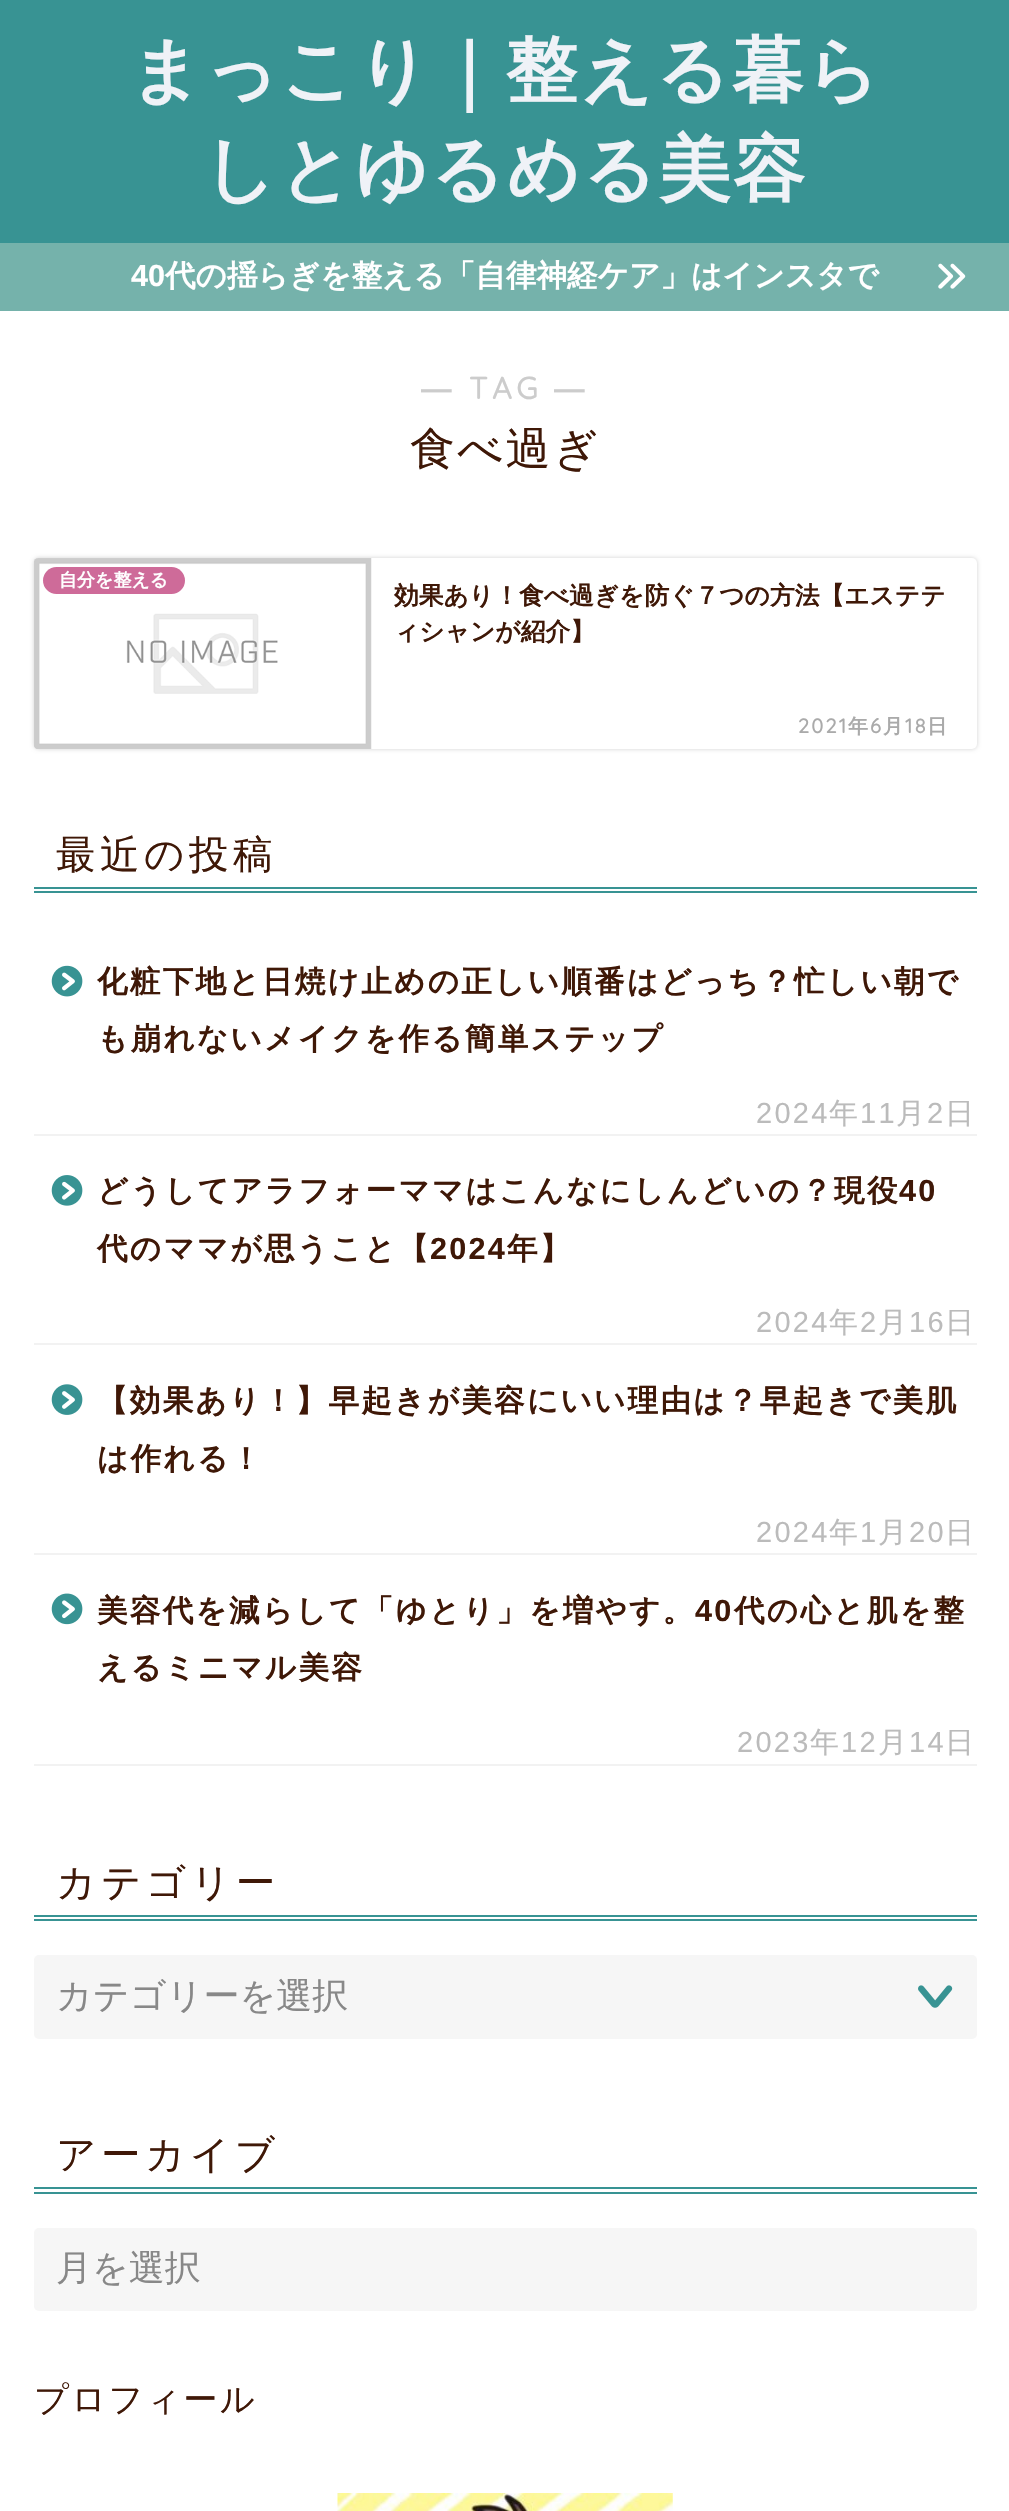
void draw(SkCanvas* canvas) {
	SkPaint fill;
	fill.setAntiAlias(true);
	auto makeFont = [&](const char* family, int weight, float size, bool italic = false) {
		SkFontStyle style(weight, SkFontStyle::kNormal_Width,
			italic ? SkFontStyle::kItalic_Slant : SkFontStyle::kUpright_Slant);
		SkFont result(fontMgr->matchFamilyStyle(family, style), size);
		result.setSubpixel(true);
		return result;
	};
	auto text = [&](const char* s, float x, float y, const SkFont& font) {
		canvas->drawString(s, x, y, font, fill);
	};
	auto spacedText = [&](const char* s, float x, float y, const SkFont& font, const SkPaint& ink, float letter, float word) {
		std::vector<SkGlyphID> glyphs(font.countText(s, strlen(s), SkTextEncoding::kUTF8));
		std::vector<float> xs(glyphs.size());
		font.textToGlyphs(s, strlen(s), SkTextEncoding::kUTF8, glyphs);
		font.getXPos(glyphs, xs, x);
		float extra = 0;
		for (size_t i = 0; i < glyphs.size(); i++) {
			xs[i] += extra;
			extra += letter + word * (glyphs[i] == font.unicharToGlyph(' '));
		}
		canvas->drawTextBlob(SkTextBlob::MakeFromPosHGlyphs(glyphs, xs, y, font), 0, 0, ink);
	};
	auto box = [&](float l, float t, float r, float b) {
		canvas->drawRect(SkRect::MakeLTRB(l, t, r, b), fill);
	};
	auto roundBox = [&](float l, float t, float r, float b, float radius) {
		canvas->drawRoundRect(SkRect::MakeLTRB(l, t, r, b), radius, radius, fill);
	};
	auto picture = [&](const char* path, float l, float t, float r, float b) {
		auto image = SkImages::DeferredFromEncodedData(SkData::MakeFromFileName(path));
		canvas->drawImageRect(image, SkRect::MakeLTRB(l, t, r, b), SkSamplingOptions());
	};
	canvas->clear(0xFFFFFFFF);
	fill.setColor(0xFF389393);
	box(0, 0, 1009, 243);
	fill.setColor(0xFF75B2AB);
	box(0, 243, 1009, 311);
	picture("image0.png", 938, 263, 966, 289);
	fill.setColor(0x2E000000);
	fill.setMaskFilter(SkMaskFilter::MakeBlur(kNormal_SkBlurStyle, 2));
	canvas->drawRoundRect(SkRect::MakeLTRB(34, 558, 977, 749), 5, 5, fill);
	fill.setMaskFilter(nullptr);
	fill.setColor(0xFFFFFFFF);
	roundBox(34, 558, 977, 749, 5);
	picture("image1.png", 34, 558, 372, 749);
	fill.setColor(0xFFCE6B99);
	roundBox(43, 567, 185, 594, 13.5f);
	fill.setColor(0xFF389393);
	box(34, 887, 977, 889);
	box(34, 891, 977, 893);
	fill.setColor(0xFFF2F2F2);
	box(34, 1134, 977, 1136);
	picture("image2.png", 51, 965, 83, 997);
	box(34, 1343, 977, 1345);
	picture("image3.png", 51, 1175, 83, 1206);
	box(34, 1553, 977, 1555);
	picture("image4.png", 51, 1384, 83, 1415);
	box(34, 1764, 977, 1766);
	picture("image5.png", 51, 1593, 83, 1625);
	fill.setColor(0xFF389393);
	box(34, 1915, 977, 1917);
	box(34, 1919, 977, 1921);
	fill.setColor(0xFFF6F6F6);
	roundBox(34, 1955, 977, 2039, 5);
	picture("image6.png", 918, 1985, 953, 2008);
	fill.setColor(0xFF389393);
	box(34, 2187, 977, 2189);
	box(34, 2192, 977, 2194);
	fill.setColor(0xFFF6F6F6);
	roundBox(34, 2228, 977, 2311, 5);
	picture("image7.png", 337, 2493, 673, 2511);
	auto font1 = makeFont("WenQuanYi Zen Hei", 700, 72);
	fill.setColor(0xFFEFF2F7);
	spacedText("まっこり｜整える暮ら", 129, 95, font1, fill, 2.25f, 0);
	spacedText("しとゆるめる美容", 203, 194, font1, fill, 2.25f, 0);
	auto font2 = makeFont("Liberation Sans", 700, 30.6f);
	fill.setColor(0xFFFFFFFF);
	text("40", 131, 286, font2);
	auto font3 = makeFont("WenQuanYi Zen Hei", 700, 30.6f);
	text("代の揺らぎを整える「自律神経ケア」はインスタで", 165, 286, font3);
	fill.setColor(0xFFCCCCCC);
	spacedText("―", 421, 399, font2, fill, 4.5f, 0);
	auto font4 = makeFont("Quicksand", 700, 30.6f);
	spacedText("TAG", 469, 399, font4, fill, 4.5f, 0);
	spacedText("―", 554, 399, font2, fill, 4.5f, 0);
	auto font5 = makeFont("WenQuanYi Zen Hei", 500, 45);
	fill.setColor(0xFF3F1807);
	spacedText("食べ過ぎ", 410, 464, font5, fill, 2.25f, 0);
	auto font6 = makeFont("WenQuanYi Zen Hei", 700, 18);
	fill.setColor(0xFFFFFFFF);
	text("自分を整える", 59, 586, font6);
	auto font7 = makeFont("WenQuanYi Zen Hei", 700, 24.75f);
	fill.setColor(0xFF3F1807);
	text("効果あり！食べ過ぎを防ぐ７つの方法【エステテ", 394, 604, font7);
	text("ィシャンが紹介】", 394, 640, font7);
	auto font8 = makeFont("Quicksand", 700, 20);
	fill.setColor(0xFFAAAAAA);
	spacedText("2021", 798, 733, font8, fill, 2.25f, 0);
	auto font9 = makeFont("WenQuanYi Zen Hei", 700, 20);
	spacedText("年", 848, 733, font9, fill, 2.25f, 0);
	spacedText("6", 870, 733, font8, fill, 2.25f, 0);
	spacedText("月", 883, 733, font9, fill, 2.25f, 0);
	spacedText("18", 905, 733, font8, fill, 2.25f, 0);
	spacedText("日", 927, 733, font9, fill, 2.25f, 0);
	auto font10 = makeFont("WenQuanYi Zen Hei", 500, 39.5f);
	fill.setColor(0xFF3F1807);
	spacedText("最近の投稿", 56, 868, font10, fill, 4.5f, 0);
	spacedText("化粧下地と日焼け止めの正しい順番はどっち？忙しい朝で", 97, 992, font3, fill, 2.25f, 0);
	spacedText("も崩れないメイクを作る簡単ステップ", 97, 1049, font3, fill, 2.25f, 0);
	auto font11 = makeFont("Liberation Sans", 400, 29);
	fill.setColor(0xFFBBBBBB);
	spacedText("2024", 756, 1123, font11, fill, 2.25f, 0);
	auto font12 = makeFont("WenQuanYi Zen Hei", 500, 29);
	spacedText("年", 829, 1123, font12, fill, 2.25f, 0);
	spacedText("11", 860, 1123, font11, fill, 2.25f, 0);
	spacedText("月", 896, 1123, font12, fill, 2.25f, 0);
	spacedText("2", 927, 1123, font11, fill, 2.25f, 0);
	spacedText("日", 945, 1123, font12, fill, 2.25f, 0);
	fill.setColor(0xFF3F1807);
	spacedText("どうしてアラフォーママはこんなにしんどいの？現役", 97, 1201, font3, fill, 2.25f, 0);
	spacedText("40", 899, 1201, font2, fill, 2.25f, 0);
	spacedText("代のママが思うこと【", 97, 1259, font3, fill, 2.25f, 0);
	spacedText("2024", 430, 1259, font2, fill, 2.25f, 0);
	spacedText("年】", 507, 1259, font3, fill, 2.25f, 0);
	fill.setColor(0xFFBBBBBB);
	spacedText("2024", 756, 1332, font11, fill, 2.25f, 0);
	spacedText("年", 829, 1332, font12, fill, 2.25f, 0);
	spacedText("2", 860, 1332, font11, fill, 2.25f, 0);
	spacedText("月", 878, 1332, font12, fill, 2.25f, 0);
	spacedText("16", 909, 1332, font11, fill, 2.25f, 0);
	spacedText("日", 945, 1332, font12, fill, 2.25f, 0);
	fill.setColor(0xFF3F1807);
	spacedText("【効果あり！】早起きが美容にいい理由は？早起きで美肌", 97, 1411, font3, fill, 2.25f, 0);
	spacedText("は作れる！", 97, 1469, font3, fill, 2.25f, 0);
	fill.setColor(0xFFBBBBBB);
	spacedText("2024", 756, 1542, font11, fill, 2.25f, 0);
	spacedText("年", 829, 1542, font12, fill, 2.25f, 0);
	spacedText("1", 860, 1542, font11, fill, 2.25f, 0);
	spacedText("月", 878, 1542, font12, fill, 2.25f, 0);
	spacedText("20", 909, 1542, font11, fill, 2.25f, 0);
	spacedText("日", 945, 1542, font12, fill, 2.25f, 0);
	fill.setColor(0xFF3F1807);
	spacedText("美容代を減らして「ゆとり」を増やす。", 97, 1621, font3, fill, 2.25f, 0);
	spacedText("40", 695, 1621, font2, fill, 2.25f, 0);
	spacedText("代の心と肌を整", 734, 1621, font3, fill, 2.25f, 0);
	spacedText("えるミニマル美容", 97, 1678, font3, fill, 2.25f, 0);
	fill.setColor(0xFFBBBBBB);
	spacedText("2023", 737, 1752, font11, fill, 2.25f, 0);
	spacedText("年", 810, 1752, font12, fill, 2.25f, 0);
	spacedText("12", 841, 1752, font11, fill, 2.25f, 0);
	spacedText("月", 878, 1752, font12, fill, 2.25f, 0);
	spacedText("14", 909, 1752, font11, fill, 2.25f, 0);
	spacedText("日", 945, 1752, font12, fill, 2.25f, 0);
	fill.setColor(0xFF3F1807);
	spacedText("カテゴリー", 56, 1896, font10, fill, 4.5f, 0);
	auto font13 = makeFont("WenQuanYi Zen Hei", 500, 36);
	fill.setColor(0xFF888888);
	text("カテゴリーを選択", 56, 2008, font13);
	fill.setColor(0xFF3F1807);
	spacedText("アーカイブ", 56, 2168, font10, fill, 4.5f, 0);
	fill.setColor(0xFF888888);
	text("月を選択", 56, 2280, font13);
	auto font14 = makeFont("WenQuanYi Zen Hei", 500, 34.25f);
	fill.setColor(0xFF3F1807);
	spacedText("プロフィール", 34, 2411, font14, fill, 2.25f, 0);
}
